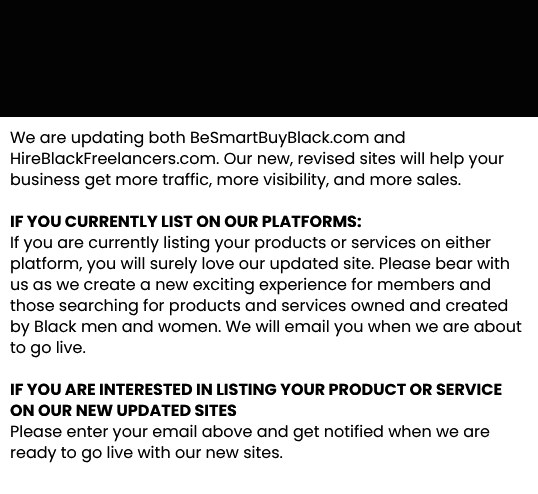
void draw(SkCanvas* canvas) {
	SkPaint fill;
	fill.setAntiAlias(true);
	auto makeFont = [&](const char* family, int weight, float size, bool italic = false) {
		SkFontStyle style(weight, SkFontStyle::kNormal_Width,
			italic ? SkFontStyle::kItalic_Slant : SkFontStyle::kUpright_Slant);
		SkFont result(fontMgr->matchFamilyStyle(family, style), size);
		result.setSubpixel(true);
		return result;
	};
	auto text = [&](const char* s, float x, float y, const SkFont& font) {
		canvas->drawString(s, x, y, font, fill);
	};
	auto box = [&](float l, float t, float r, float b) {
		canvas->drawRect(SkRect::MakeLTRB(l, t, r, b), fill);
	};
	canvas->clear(0xFFFFFFFF);
	fill.setColor(0xFF030303);
	box(0, 0, 538, 117);
	auto font1 = makeFont("Poppins", 400, 16);
	fill.setColor(0xFF000000);
	text("We are updating both BeSmartBuyBlack.com and", 10, 143, font1);
	text("HireBlackFreelancers.com. Our new, revised sites will help your", 10, 164, font1);
	text("business get more traffic, more visibility, and more sales.", 10, 185, font1);
	auto font2 = makeFont("Poppins", 700, 16);
	text("IF YOU CURRENTLY LIST ON OUR PLATFORMS:", 10, 227, font2);
	text("If you are currently listing your products or services on either", 10, 248, font1);
	text("platform, you will surely love our updated site. Please bear with", 10, 269, font1);
	text("us as we create a new exciting experience for members and", 10, 290, font1);
	text("those searching for products and services owned and created", 10, 311, font1);
	text("by Black men and women. We will email you when we are about", 10, 332, font1);
	text("to go live.", 10, 353, font1);
	text("IF YOU ARE INTERESTED IN LISTING YOUR PRODUCT OR SERVICE", 10, 395, font2);
	text("ON OUR NEW UPDATED SITES", 10, 416, font2);
	text("Please enter your email above and get notified when we are", 10, 437, font1);
	text("ready to go live with our new sites.", 10, 458, font1);
}
